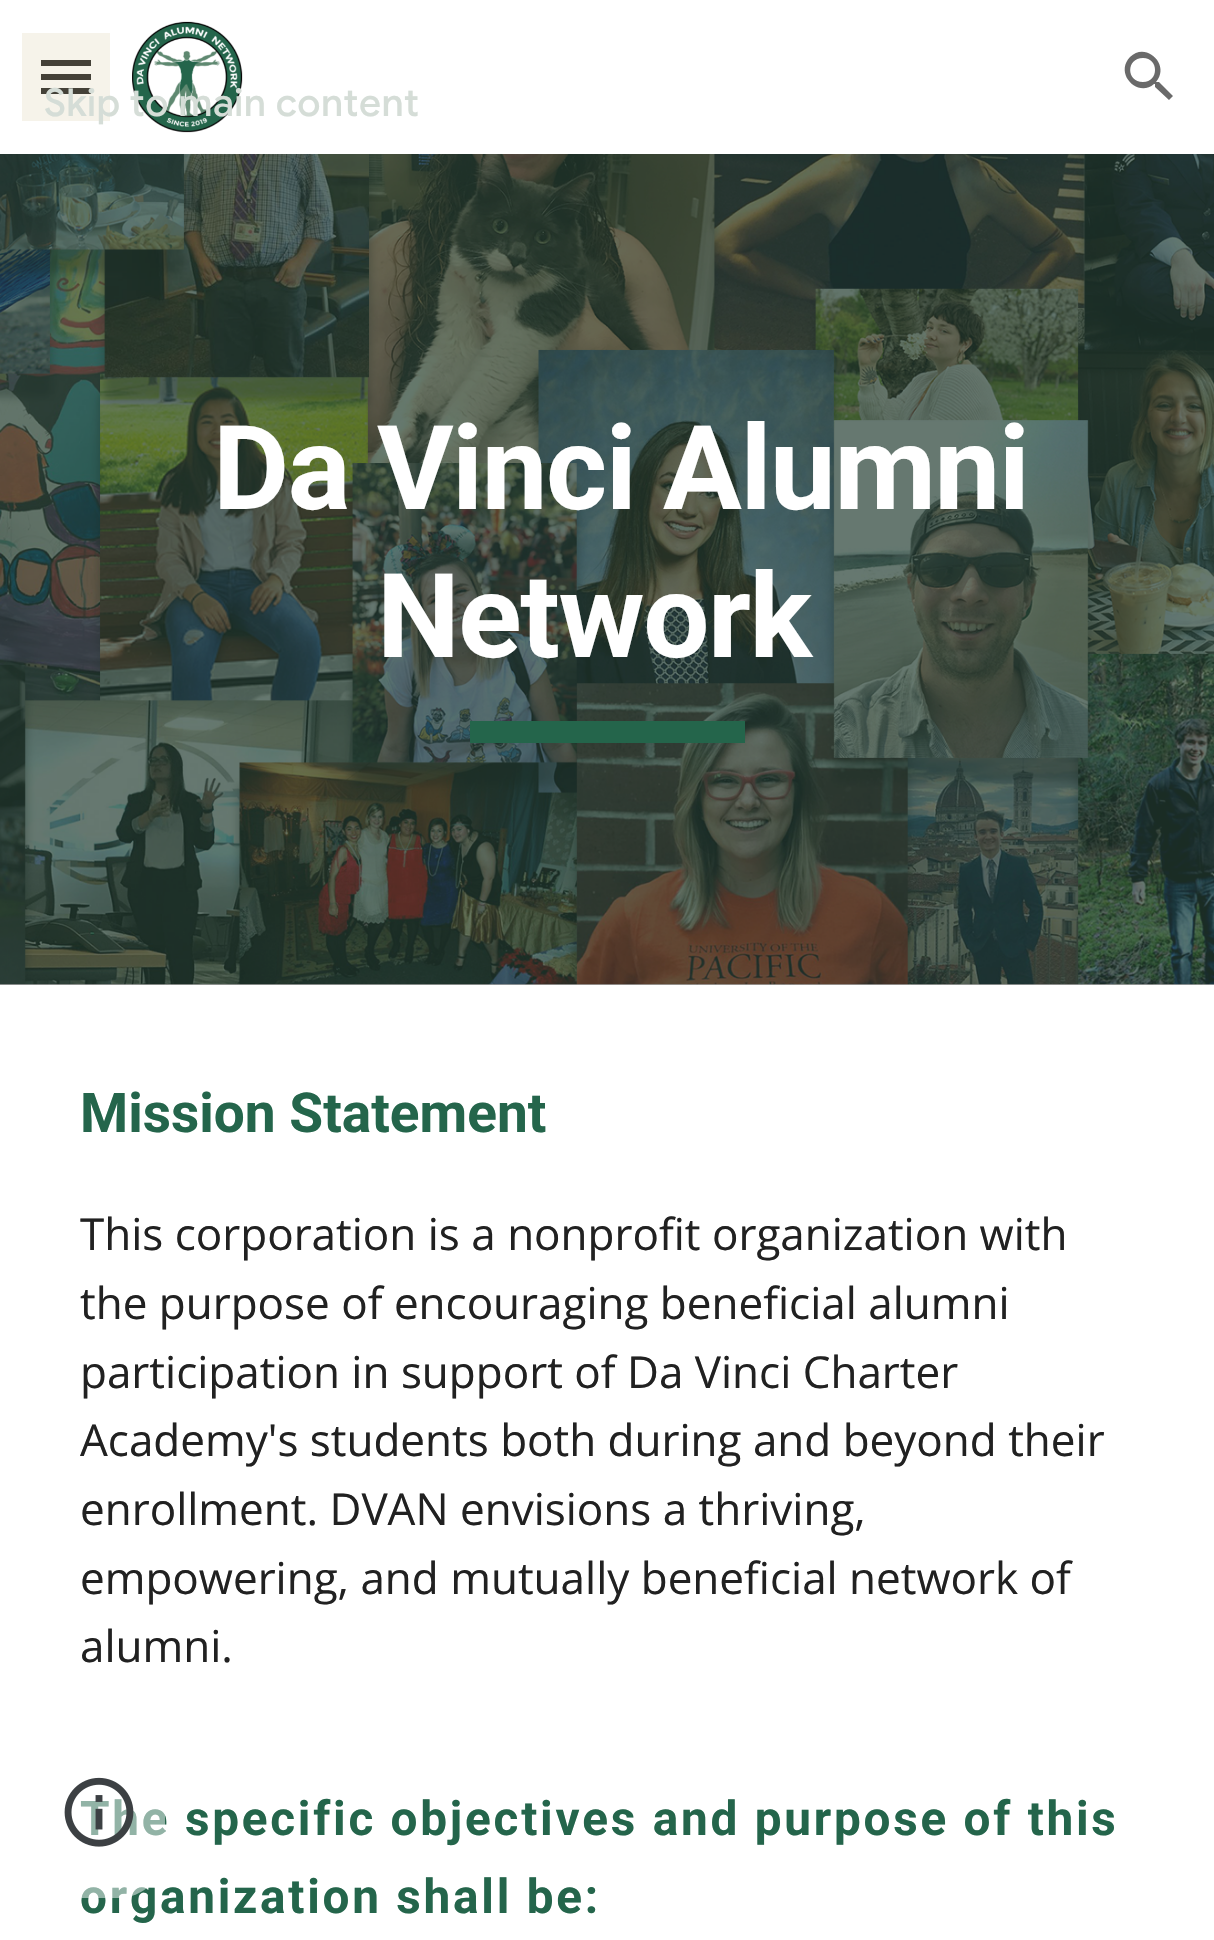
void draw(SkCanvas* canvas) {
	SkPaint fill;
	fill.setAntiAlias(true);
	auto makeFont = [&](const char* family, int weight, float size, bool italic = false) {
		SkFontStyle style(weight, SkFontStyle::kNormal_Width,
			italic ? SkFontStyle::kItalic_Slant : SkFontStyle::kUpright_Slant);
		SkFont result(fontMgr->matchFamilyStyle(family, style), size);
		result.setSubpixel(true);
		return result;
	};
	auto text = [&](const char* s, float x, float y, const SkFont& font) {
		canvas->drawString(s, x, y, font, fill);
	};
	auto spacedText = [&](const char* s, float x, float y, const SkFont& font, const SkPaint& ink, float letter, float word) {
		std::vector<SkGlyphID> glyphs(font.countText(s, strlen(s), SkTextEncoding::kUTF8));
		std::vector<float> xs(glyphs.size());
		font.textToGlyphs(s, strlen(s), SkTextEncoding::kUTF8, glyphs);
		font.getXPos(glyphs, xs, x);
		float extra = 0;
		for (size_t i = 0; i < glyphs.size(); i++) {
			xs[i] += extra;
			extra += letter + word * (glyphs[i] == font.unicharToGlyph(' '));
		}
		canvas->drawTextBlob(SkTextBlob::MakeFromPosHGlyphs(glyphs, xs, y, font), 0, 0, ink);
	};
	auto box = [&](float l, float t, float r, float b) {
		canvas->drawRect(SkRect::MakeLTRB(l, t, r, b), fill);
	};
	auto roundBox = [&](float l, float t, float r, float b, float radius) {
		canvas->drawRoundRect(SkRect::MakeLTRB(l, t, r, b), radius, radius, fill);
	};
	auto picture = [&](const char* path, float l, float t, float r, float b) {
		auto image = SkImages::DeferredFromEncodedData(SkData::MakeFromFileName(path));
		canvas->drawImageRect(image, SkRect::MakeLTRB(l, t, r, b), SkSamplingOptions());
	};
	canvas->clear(0xFFFFFFFF);
	fill.setColor(0xFFA6A6A6);
	box(0, 984, 1214, 985);
	fill.setColor(0xFF343434);
	box(41, 60, 91, 66);
	box(41, 74, 91, 80);
	box(41, 88, 91, 94);
	fill.setColor(0x1FB79951);
	box(22, 33, 110, 121);
	picture("image0.png", 132, 21, 243, 133);
	fill.setColor(0xFF6A6A6A);
	canvas->drawPath(SkPathBuilder().moveTo(1159, 82).lineTo(1157, 82).lineTo(1156, 82).cubicTo(1171, 65, 1146, 41, 1130, 57).cubicTo(1114, 74, 1138, 98, 1154, 84).lineTo(1155, 84).lineTo(1155, 87).lineTo(1169, 100).lineTo(1173, 96).close().moveTo(1143, 82).cubicTo(1126, 82, 1126, 58, 1143, 58).cubicTo(1159, 58, 1159, 82, 1143, 82).close().detach(), fill);
	picture("image1.png", 0, 154, 1214, 985);
	fill.setColor(0xFF24654B);
	box(470, 721, 745, 743);
	auto font1 = makeFont("Google Sans", 500, 38.5f);
	fill.setColor(0xFFD5DDD7);
	spacedText("Skip to main content", 44, 116, font1, fill, 0.4f, 0);
	auto font2 = makeFont("Roboto", 700, 117.25f);
	fill.setColor(0xFFFFFFFF);
	spacedText("Da Vinci Alumni", 213, 509, font2, fill, -1.4f, 0);
	spacedText("Network", 377, 657, font2, fill, -1.4f, 0);
	auto font3 = makeFont("Roboto", 700, 55);
	fill.setColor(0xFF24654B);
	text("Mission Statement", 80, 1132, font3);
	auto font4 = makeFont("Open Sans", 400, 44);
	fill.setColor(0xFF212121);
	text("This corporation is a nonprofit organization with", 80, 1250, font4);
	text("the purpose of encouraging beneficial alumni", 80, 1319, font4);
	text("participation in support of Da Vinci Charter", 80, 1388, font4);
	text("Academy's students both during and beyond their", 80, 1456, font4);
	text("enrollment. DVAN envisions a thriving,", 80, 1525, font4);
	text("empowering, and mutually beneficial network of", 80, 1594, font4);
	text("alumni.", 80, 1662, font4);
	auto font5 = makeFont("Roboto", 700, 47.7f);
	fill.setColor(0xFF24654B);
	spacedText("The specific objectives and purpose of this", 80, 1835, font5, fill, 2.75f, 0);
	spacedText("organization shall be:", 80, 1913, font5, fill, 2.75f, 0);
	fill.setColor(0x80FFFFFF);
	roundBox(33, 1766, 165, 1898, 47);
	picture("image2.png", 64, 1777, 134, 1847);
}
